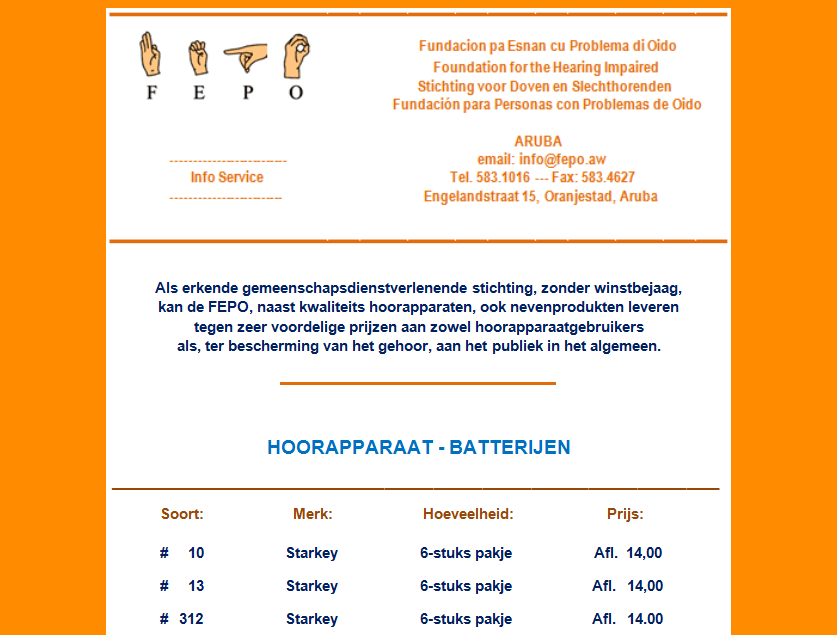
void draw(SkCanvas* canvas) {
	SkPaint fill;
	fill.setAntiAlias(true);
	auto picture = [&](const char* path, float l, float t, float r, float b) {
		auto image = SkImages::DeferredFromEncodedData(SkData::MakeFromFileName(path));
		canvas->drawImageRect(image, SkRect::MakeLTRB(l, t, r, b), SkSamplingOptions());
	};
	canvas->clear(0xFFFF8C00);
	picture("image0.png", 106, 8, 731, 248);
	picture("image1.png", 106, 248, 731, 635);
}
